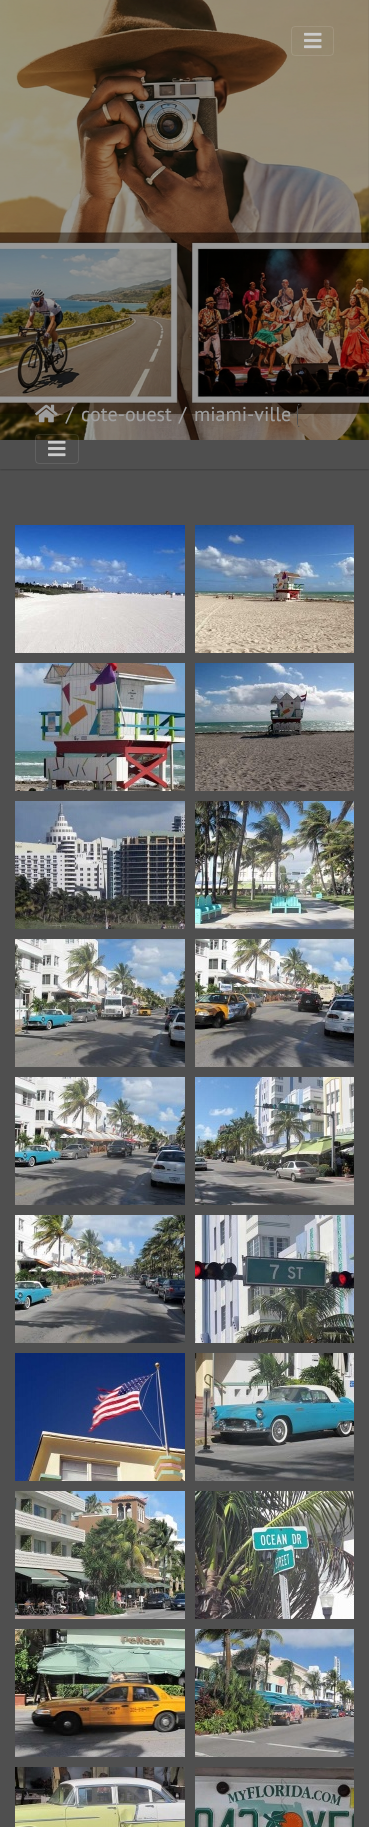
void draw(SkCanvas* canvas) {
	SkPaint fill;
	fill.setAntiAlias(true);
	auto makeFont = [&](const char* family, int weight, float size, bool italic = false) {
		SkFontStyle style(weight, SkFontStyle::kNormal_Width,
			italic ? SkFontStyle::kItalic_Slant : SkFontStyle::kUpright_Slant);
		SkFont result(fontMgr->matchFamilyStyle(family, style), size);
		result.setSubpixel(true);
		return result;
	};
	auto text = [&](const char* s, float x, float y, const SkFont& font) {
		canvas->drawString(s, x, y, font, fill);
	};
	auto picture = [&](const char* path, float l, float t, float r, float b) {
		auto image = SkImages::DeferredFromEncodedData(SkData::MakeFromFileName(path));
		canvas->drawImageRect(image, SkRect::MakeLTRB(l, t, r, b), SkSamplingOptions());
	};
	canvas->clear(0xFF4F4F4F);
	picture("image0.png", 0, 0, 369, 440);
	fill.setStyle(SkPaint::kStroke_Style);
	fill.setStrokeWidth(1);
	fill.setColor(0x1AFFFFFF);
	canvas->drawRoundRect(SkRect::MakeLTRB(291.5f, 26.5f, 333.5f, 55.5f), 3.5f, 3.5f, fill);
	picture("image1.png", 304, 32, 322, 49);
	canvas->save();
	canvas->clipRect(SkRect::MakeLTRB(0, 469, 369, 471));
	fill.setStyle(SkPaint::kFill_Style);
	fill.setColor(0x3D000000);
	fill.setMaskFilter(SkMaskFilter::MakeBlur(kNormal_SkBlurStyle, 1));
	canvas->drawRect(SkRect::MakeLTRB(0, 390, 369, 470), fill);
	fill.setMaskFilter(nullptr);
	canvas->restore();
	picture("image2.png", 35, 404, 58, 423);
	fill.setColor(0xFF4F4F4F);
	canvas->drawPath(SkPathBuilder().moveTo(301, 404).lineTo(298, 404).lineTo(298, 427).lineTo(301, 427).cubicTo(299, 427, 297, 425, 297, 423).lineTo(297, 408).cubicTo(297, 406, 299, 404, 301, 404).close().detach(), fill);
	fill.setStyle(SkPaint::kStroke_Style);
	fill.setColor(0x1AFFFFFF);
	canvas->drawRoundRect(SkRect::MakeLTRB(35.5f, 434.5f, 78.5f, 463.5f), 3.5f, 3.5f, fill);
	picture("image3.png", 48, 440, 66, 457);
	picture("image4.png", 15, 525, 185, 653);
	picture("image5.png", 195, 525, 354, 653);
	picture("image6.png", 15, 663, 185, 791);
	picture("image7.png", 195, 663, 354, 791);
	picture("image8.png", 15, 801, 185, 929);
	picture("image9.png", 195, 801, 354, 929);
	picture("image10.png", 15, 939, 185, 1067);
	picture("image11.png", 195, 939, 354, 1067);
	picture("image12.png", 15, 1077, 185, 1205);
	picture("image13.png", 195, 1077, 354, 1205);
	picture("image14.png", 15, 1215, 185, 1343);
	picture("image15.png", 195, 1215, 354, 1343);
	picture("image16.png", 15, 1353, 185, 1481);
	picture("image17.png", 195, 1353, 354, 1481);
	picture("image18.png", 15, 1491, 185, 1619);
	picture("image19.png", 195, 1491, 354, 1619);
	picture("image20.png", 15, 1629, 185, 1757);
	picture("image21.png", 195, 1629, 354, 1757);
	picture("image22.png", 15, 1767, 185, 1827);
	picture("image23.png", 195, 1767, 354, 1827);
	auto font1 = makeFont("PT Sans", 400, 20);
	fill.setStyle(SkPaint::kFill_Style);
	fill.setColor(0xFF9E9E9E);
	text("/", 66, 421, font1);
	text("cote-ouest", 81, 421, font1);
	text("/", 179, 421, font1);
	text("miami-ville", 194, 421, font1);
}
